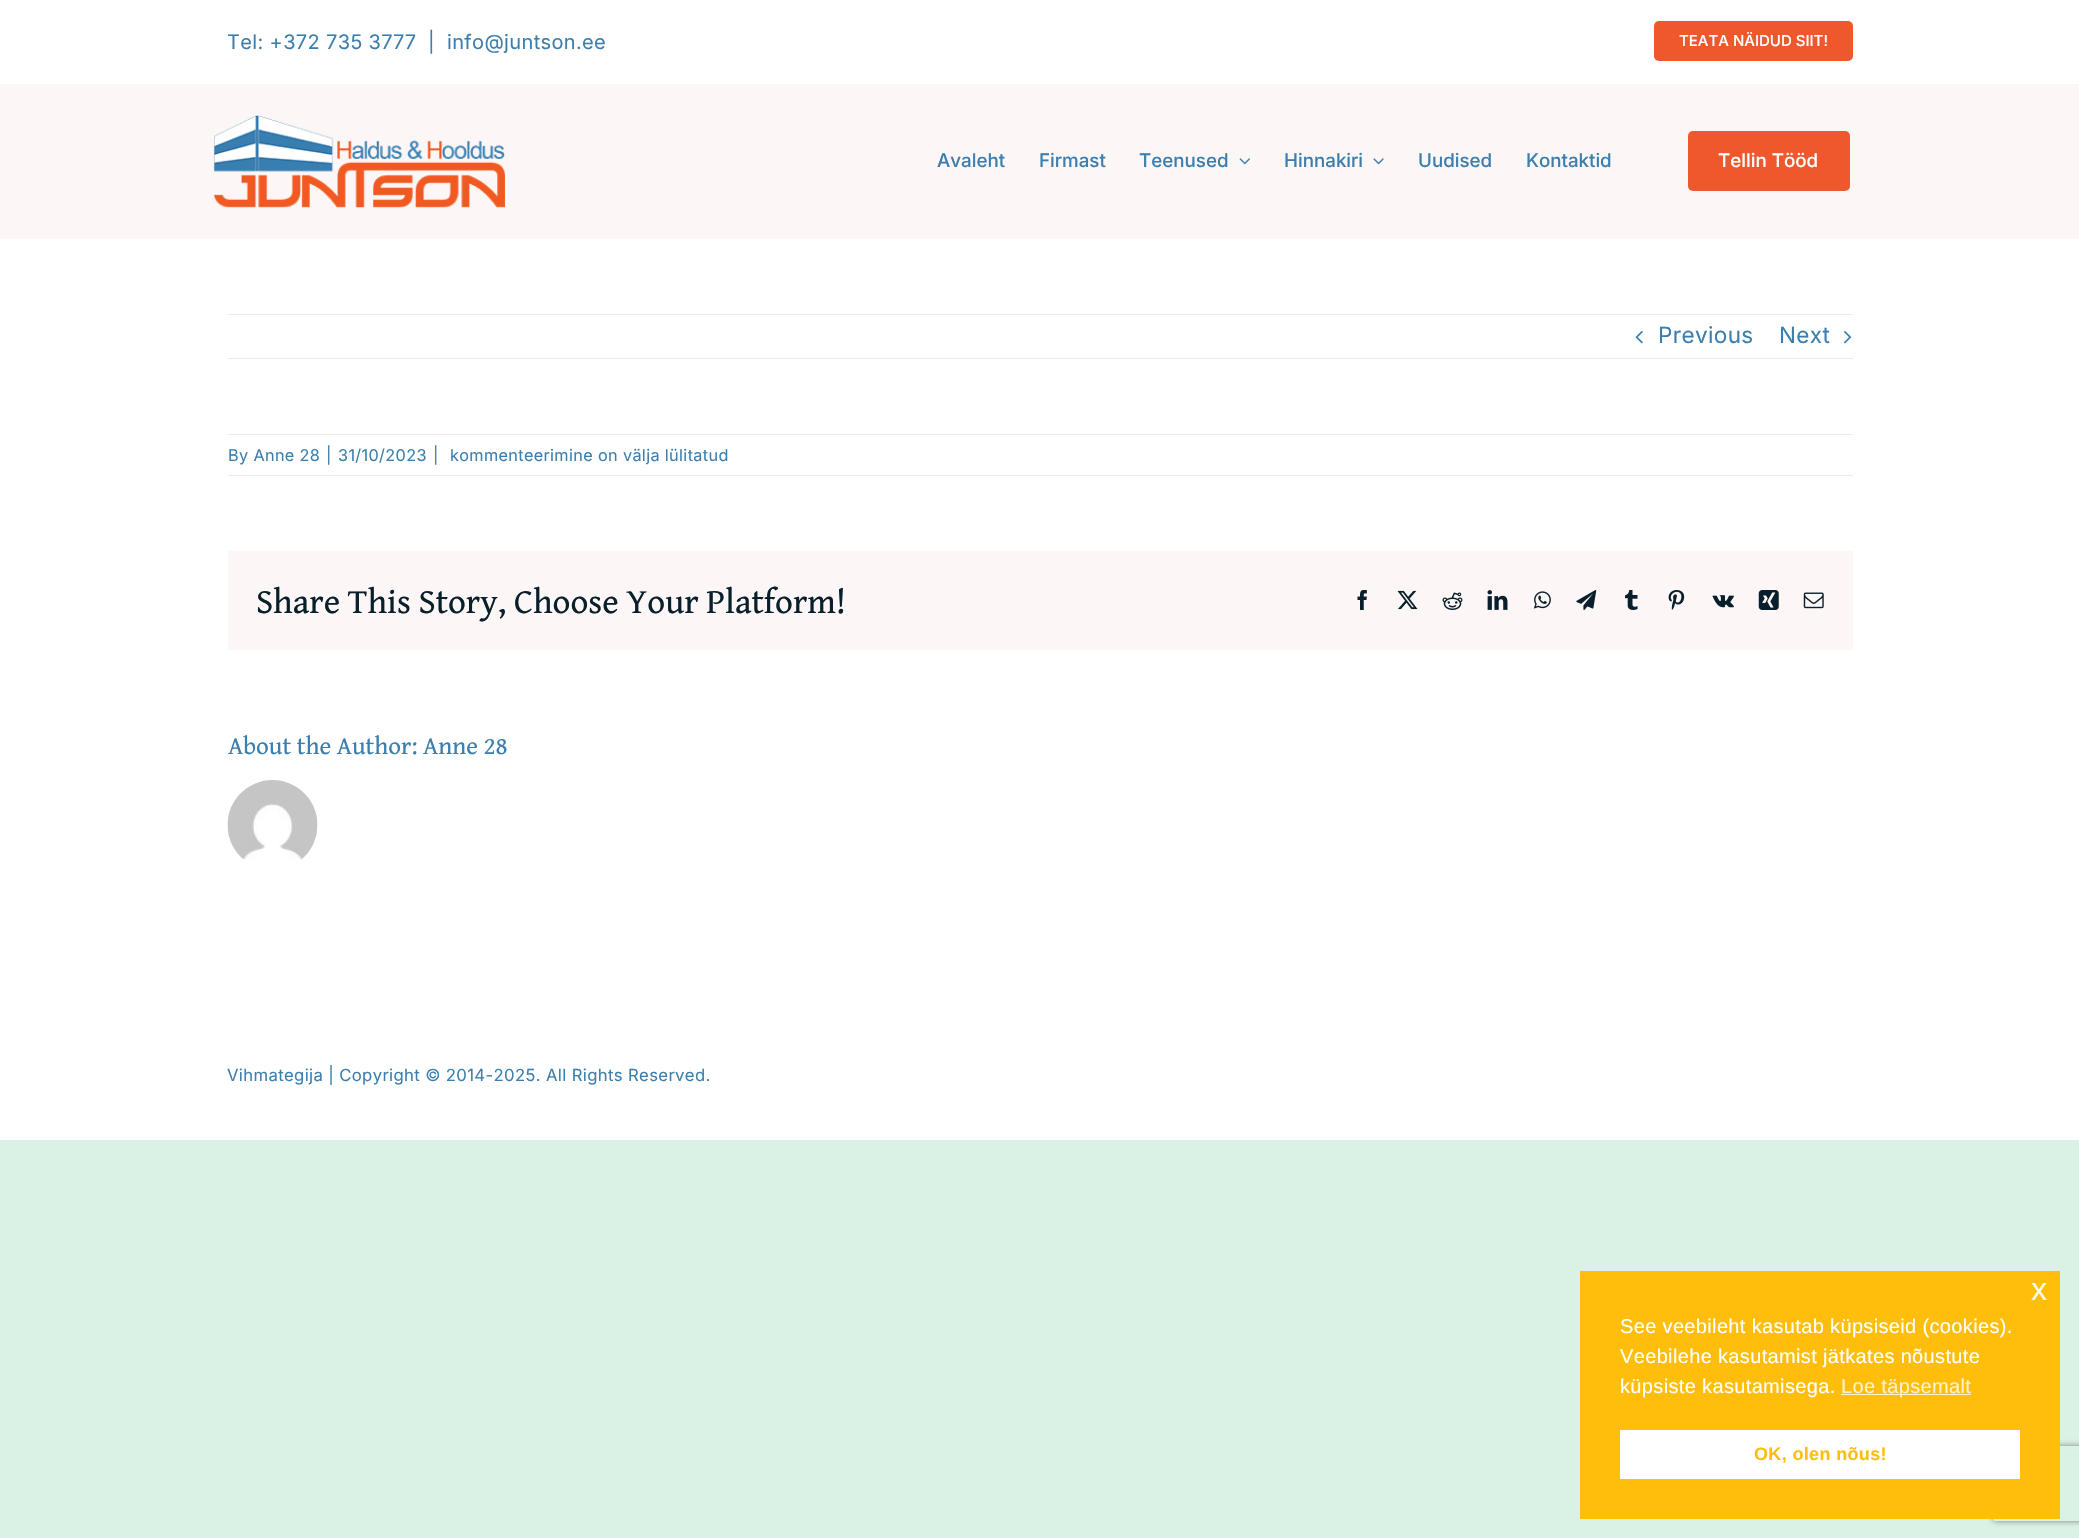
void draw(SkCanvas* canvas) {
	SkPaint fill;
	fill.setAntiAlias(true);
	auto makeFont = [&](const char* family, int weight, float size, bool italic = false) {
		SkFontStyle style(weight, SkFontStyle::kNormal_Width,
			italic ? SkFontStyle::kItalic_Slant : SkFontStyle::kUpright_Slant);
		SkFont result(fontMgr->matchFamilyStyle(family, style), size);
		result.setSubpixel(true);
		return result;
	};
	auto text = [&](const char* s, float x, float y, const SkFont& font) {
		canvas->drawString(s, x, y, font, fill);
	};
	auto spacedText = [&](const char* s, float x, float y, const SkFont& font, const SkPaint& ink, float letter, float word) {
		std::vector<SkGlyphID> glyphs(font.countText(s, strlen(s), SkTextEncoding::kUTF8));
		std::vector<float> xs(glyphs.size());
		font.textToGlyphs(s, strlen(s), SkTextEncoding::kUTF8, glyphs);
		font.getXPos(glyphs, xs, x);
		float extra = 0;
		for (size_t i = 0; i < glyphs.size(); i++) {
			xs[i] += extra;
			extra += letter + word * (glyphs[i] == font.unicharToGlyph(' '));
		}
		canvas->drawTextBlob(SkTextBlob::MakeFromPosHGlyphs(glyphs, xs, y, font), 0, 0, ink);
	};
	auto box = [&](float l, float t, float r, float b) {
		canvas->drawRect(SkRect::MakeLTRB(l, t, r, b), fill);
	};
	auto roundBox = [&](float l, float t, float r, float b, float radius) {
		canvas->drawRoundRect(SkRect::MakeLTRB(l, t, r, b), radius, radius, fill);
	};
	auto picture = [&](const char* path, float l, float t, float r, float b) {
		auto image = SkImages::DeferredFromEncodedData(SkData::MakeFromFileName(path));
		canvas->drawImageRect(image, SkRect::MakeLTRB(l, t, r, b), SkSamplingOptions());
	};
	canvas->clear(0xFFDAF2E6);
	fill.setColor(0xFFFFFFFF);
	box(0, 0, 2079, 1140);
	fill.setColor(0xFFEF572C);
	roundBox(1654, 21, 1853, 61, 5);
	fill.setColor(0xFFFCF7F6);
	box(0, 84, 2079, 239);
	picture("image0.png", 213, 115, 505, 208);
	picture("image1.png", 1239, 158, 1250, 165);
	picture("image2.png", 1373, 158, 1384, 165);
	fill.setColor(0xFFEF572C);
	roundBox(1688, 131, 1850, 191, 5);
	fill.setColor(0xFFEBEBEB);
	box(228, 314, 1853, 315);
	box(228, 358, 1853, 359);
	picture("image3.png", 1635, 330, 1643, 344);
	picture("image4.png", 1844, 331, 1852, 344);
	box(228, 434, 1853, 435);
	box(228, 475, 1853, 476);
	fill.setColor(0xFFFCF7F6);
	box(228, 551, 1853, 650);
	picture("image5.png", 1357, 590, 1367, 610);
	picture("image6.png", 1397, 590, 1418, 610);
	picture("image7.png", 1442, 592, 1463, 610);
	picture("image8.png", 1487, 590, 1508, 610);
	picture("image9.png", 1533, 591, 1551, 609);
	picture("image10.png", 1576, 590, 1597, 610);
	picture("image11.png", 1625, 590, 1638, 610);
	picture("image12.png", 1668, 590, 1685, 610);
	picture("image13.png", 1712, 595, 1734, 608);
	picture("image14.png", 1758, 590, 1779, 610);
	picture("image15.png", 1803, 592, 1824, 609);
	picture("image16.png", 227, 780, 318, 860);
	canvas->save();
	canvas->clipPath(SkPathBuilder(SkPathFillType::kEvenOdd).moveTo(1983, 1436).lineTo(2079, 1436).lineTo(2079, 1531).lineTo(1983, 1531).close().moveTo(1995.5f, 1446).lineTo(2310.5f, 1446).cubicTo(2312, 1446, 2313, 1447, 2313, 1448.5f).lineTo(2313, 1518.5f).cubicTo(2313, 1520, 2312, 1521, 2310.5f, 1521).lineTo(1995.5f, 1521).cubicTo(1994, 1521, 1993, 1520, 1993, 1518.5f).lineTo(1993, 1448.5f).cubicTo(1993, 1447, 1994, 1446, 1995.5f, 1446).close().detach(), true);
	fill.setColor(0xFF808080);
	fill.setMaskFilter(SkMaskFilter::MakeBlur(kNormal_SkBlurStyle, 3));
	canvas->drawRoundRect(SkRect::MakeLTRB(1993, 1446, 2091, 1521), 2.5f, 2.5f, fill);
	fill.setMaskFilter(nullptr);
	canvas->restore();
	fill.setColor(0xFFFEBE0B);
	box(1580, 1271, 2060, 1519);
	fill.setColor(0xFFFFF2CE);
	box(1841, 1394, 1971, 1395);
	fill.setColor(0xFFFFFFFF);
	box(1620, 1430, 2020, 1479);
	auto font1 = makeFont("Inter", 400, 20);
	fill.setColor(0xFF3C7FAE);
	spacedText("Tel: +372 735 3777", 227, 49, font1, fill, 0.35f, 0);
	spacedText("|", 428, 49, font1, fill, 0.35f, 0);
	spacedText("info@juntson.ee", 447, 49, font1, fill, 0.35f, 0);
	auto font2 = makeFont("Inter", 500, 15);
	fill.setColor(0xFFFFFFFF);
	text("TEATA NÄIDUD SIIT!", 1679, 46, font2);
	auto font3 = makeFont("Inter", 500, 18.75f);
	fill.setColor(0xFF3C7FAE);
	text("Avaleht", 937, 167, font3);
	text("Firmast", 1039, 167, font3);
	text("Teenused", 1139, 167, font3);
	text("Hinnakiri", 1284, 167, font3);
	text("Uudised", 1418, 167, font3);
	text("Kontaktid", 1526, 167, font3);
	fill.setColor(0xFFFFFFFF);
	text("Tellin Tööd", 1718, 167, font3);
	auto font4 = makeFont("Inter", 400, 22.5f);
	fill.setColor(0xFF3C7FAE);
	spacedText("Previous", 1658, 343, font4, fill, 0.35f, 0);
	spacedText("Next", 1779, 343, font4, fill, 0.35f, 0);
	auto font5 = makeFont("Inter", 400, 16.25f);
	spacedText("By Anne 28", 228, 461, font5, fill, 0.35f, 0);
	spacedText("|", 326, 461, font5, fill, 0.35f, 0);
	spacedText("31/10/2023", 338, 461, font5, fill, 0.35f, 0);
	spacedText("|", 433, 461, font5, fill, 0.35f, 0);
	spacedText("kommenteerimine on välja lülitatud", 450, 461, font5, fill, 0.35f, 0);
	auto font6 = makeFont("Gentium Book Plus", 400, 35);
	fill.setColor(0xFF09202C);
	text("Share This Story, Choose Your Platform!", 256, 613, font6);
	auto font7 = makeFont("Gentium Book Plus", 400, 25);
	fill.setColor(0xFF3C7FAE);
	text("About the Author: Anne 28", 228, 754, font7);
	auto font8 = makeFont("Inter", 400, 16.7f);
	spacedText("Vihmategija | Copyright © 2014-2025. All Rights Reserved.", 227, 1081, font8, fill, 0.35f, 0);
	auto font9 = makeFont("Liberation Sans", 400, 32);
	fill.setColor(0xFFFFF9E7);
	spacedText("x", 2031, 1300, font9, fill, 0.35f, 0);
	auto font10 = makeFont("Liberation Sans", 400, 20);
	fill.setColor(0xFFFFFFFF);
	spacedText("See veebileht kasutab küpsiseid (cookies).", 1620, 1333, font10, fill, 0.35f, 0);
	spacedText("Veebilehe kasutamist jätkates nõustute", 1620, 1363, font10, fill, 0.35f, 0);
	spacedText("küpsiste kasutamisega.", 1620, 1393, font10, fill, 0.35f, 0);
	fill.setColor(0xFFFFF2CE);
	spacedText("Loe täpsemalt", 1841, 1393, font10, fill, 0.35f, 0);
	auto font11 = makeFont("Liberation Sans", 700, 18);
	fill.setColor(0xFFFEBE0B);
	spacedText("OK, olen nõus!", 1754, 1460, font11, fill, 0.35f, 0);
}
